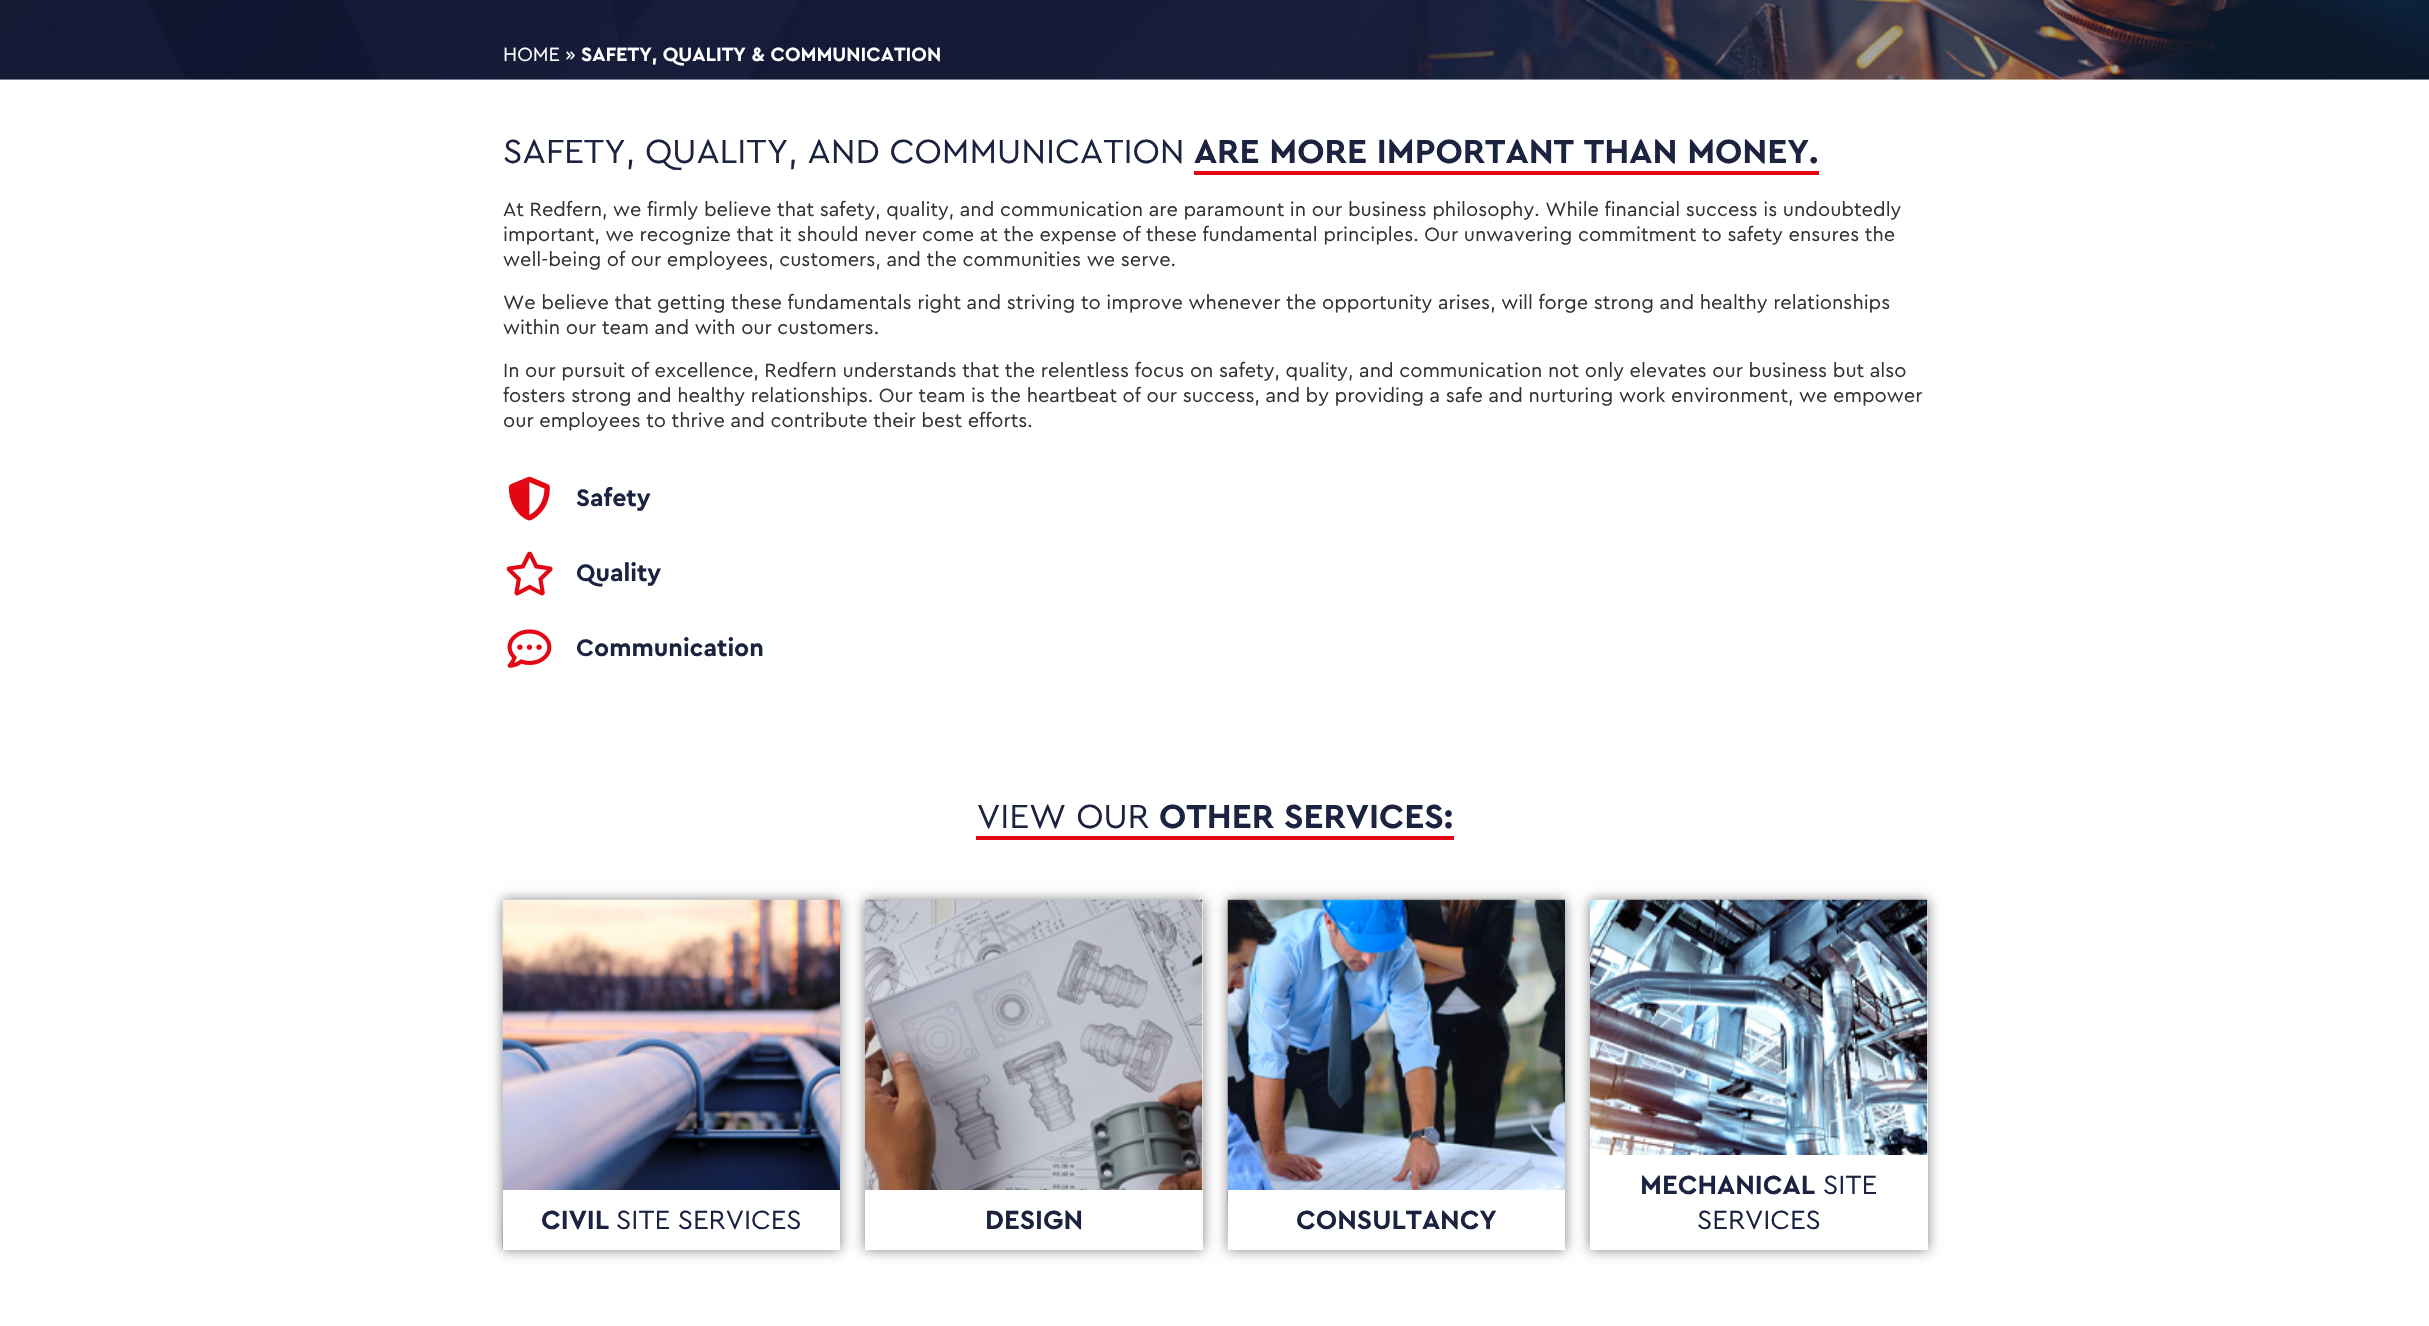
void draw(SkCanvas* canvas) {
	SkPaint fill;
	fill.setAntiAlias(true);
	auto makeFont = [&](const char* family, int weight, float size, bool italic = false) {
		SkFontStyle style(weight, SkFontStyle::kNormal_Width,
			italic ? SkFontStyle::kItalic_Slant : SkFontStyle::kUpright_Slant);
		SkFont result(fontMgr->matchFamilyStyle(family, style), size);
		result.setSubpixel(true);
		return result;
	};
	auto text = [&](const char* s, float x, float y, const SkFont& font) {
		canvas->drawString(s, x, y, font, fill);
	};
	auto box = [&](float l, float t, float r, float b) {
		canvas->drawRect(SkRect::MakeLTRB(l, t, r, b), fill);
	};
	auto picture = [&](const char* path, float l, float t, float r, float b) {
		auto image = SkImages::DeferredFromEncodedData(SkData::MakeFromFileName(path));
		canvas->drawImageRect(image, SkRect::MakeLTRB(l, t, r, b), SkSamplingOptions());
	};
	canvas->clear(0xFFFFFFFF);
	fill.setColor(0xFFE5E5E5);
	box(0, 79, 2429, 80);
	picture("image0.png", 0, 0, 2429, 80);
	fill.setColor(0xFFE30713);
	box(1194, 171, 1819, 175);
	picture("image1.png", 508, 476, 550, 521);
	picture("image2.png", 506, 551, 553, 596);
	picture("image3.png", 507, 629, 552, 668);
	box(976, 836, 1454, 840);
	fill.setColor(0x80000000);
	fill.setMaskFilter(SkMaskFilter::MakeBlur(kNormal_SkBlurStyle, 6));
	canvas->drawRect(SkRect::MakeLTRB(503, 900, 840, 1250), fill);
	fill.setMaskFilter(nullptr);
	picture("image4.png", 502, 899, 840, 1250);
	fill.setColor(0xFFFFFFFF);
	box(503, 1190, 840, 1250);
	fill.setColor(0x80000000);
	fill.setMaskFilter(SkMaskFilter::MakeBlur(kNormal_SkBlurStyle, 6));
	canvas->drawRect(SkRect::MakeLTRB(865, 900, 1203, 1250), fill);
	fill.setMaskFilter(nullptr);
	fill.setColor(0xFFFFFFFF);
	box(1202, 900, 1203, 1190);
	picture("image5.png", 865, 899, 1203, 1190);
	box(865, 1190, 1203, 1250);
	fill.setColor(0x80000000);
	fill.setMaskFilter(SkMaskFilter::MakeBlur(kNormal_SkBlurStyle, 6));
	canvas->drawRect(SkRect::MakeLTRB(1228, 900, 1565, 1250), fill);
	fill.setMaskFilter(nullptr);
	picture("image6.png", 1227, 899, 1565, 1250);
	fill.setColor(0xFFFFFFFF);
	box(1228, 1190, 1565, 1250);
	fill.setColor(0x80000000);
	fill.setMaskFilter(SkMaskFilter::MakeBlur(kNormal_SkBlurStyle, 6));
	canvas->drawRect(SkRect::MakeLTRB(1590, 900, 1928, 1250), fill);
	fill.setMaskFilter(nullptr);
	fill.setColor(0xFFFFFFFF);
	box(1927, 900, 1928, 1155);
	picture("image7.png", 1590, 899, 1928, 1155);
	box(1590, 1155, 1928, 1250);
	auto font1 = makeFont("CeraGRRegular", 400, 20);
	text("HOME »", 503, 61, font1);
	auto font2 = makeFont("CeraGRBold", 700, 20);
	text("SAFETY, QUALITY & COMMUNICATION", 581, 61, font2);
	auto font3 = makeFont("CeraGRRegular", 400, 35);
	fill.setColor(0xFF1C2341);
	text("SAFETY, QUALITY, AND COMMUNICATION", 503, 163, font3);
	auto font4 = makeFont("CeraGRBold", 700, 35);
	text("ARE MORE IMPORTANT THAN MONEY.", 1194, 163, font4);
	fill.setColor(0xFF333333);
	text("At Redfern, we firmly believe that safety, quality, and communication are paramount in our business philosophy. While financial success is undoubtedly", 503, 216, font1);
	text("important, we recognize that it should never come at the expense of these fundamental principles. Our unwavering commitment to safety ensures the", 503, 241, font1);
	text("well-being of our employees, customers, and the communities we serve.", 503, 266, font1);
	text("We believe that getting these fundamentals right and striving to improve whenever the opportunity arises, will forge strong and healthy relationships", 503, 309, font1);
	text("within our team and with our customers.", 503, 334, font1);
	text("In our pursuit of excellence, Redfern understands that the relentless focus on safety, quality, and communication not only elevates our business but also", 503, 377, font1);
	text("fosters strong and healthy relationships. Our team is the heartbeat of our success, and by providing a safe and nurturing work environment, we empower", 503, 402, font1);
	text("our employees to thrive and contribute their best efforts.", 503, 427, font1);
	auto font5 = makeFont("CeraGRBold", 700, 25);
	fill.setColor(0xFF1C2341);
	text("Safety", 576, 506, font5);
	text("Quality", 576, 581, font5);
	text("Communication", 576, 656, font5);
	text("VIEW OUR", 977, 828, font3);
	text("OTHER SERVICES:", 1159, 828, font4);
	auto font6 = makeFont("CeraGRBold", 700, 27.5f);
	text("CIVIL", 541, 1229, font6);
	auto font7 = makeFont("CeraGRRegular", 400, 27.5f);
	text("SITE SERVICES", 616, 1229, font7);
	text("DESIGN", 985, 1229, font6);
	text("CONSULTANCY", 1296, 1229, font6);
	text("MECHANICAL", 1640, 1194, font6);
	text("SITE", 1823, 1194, font7);
	text("SERVICES", 1697, 1229, font7);
}
